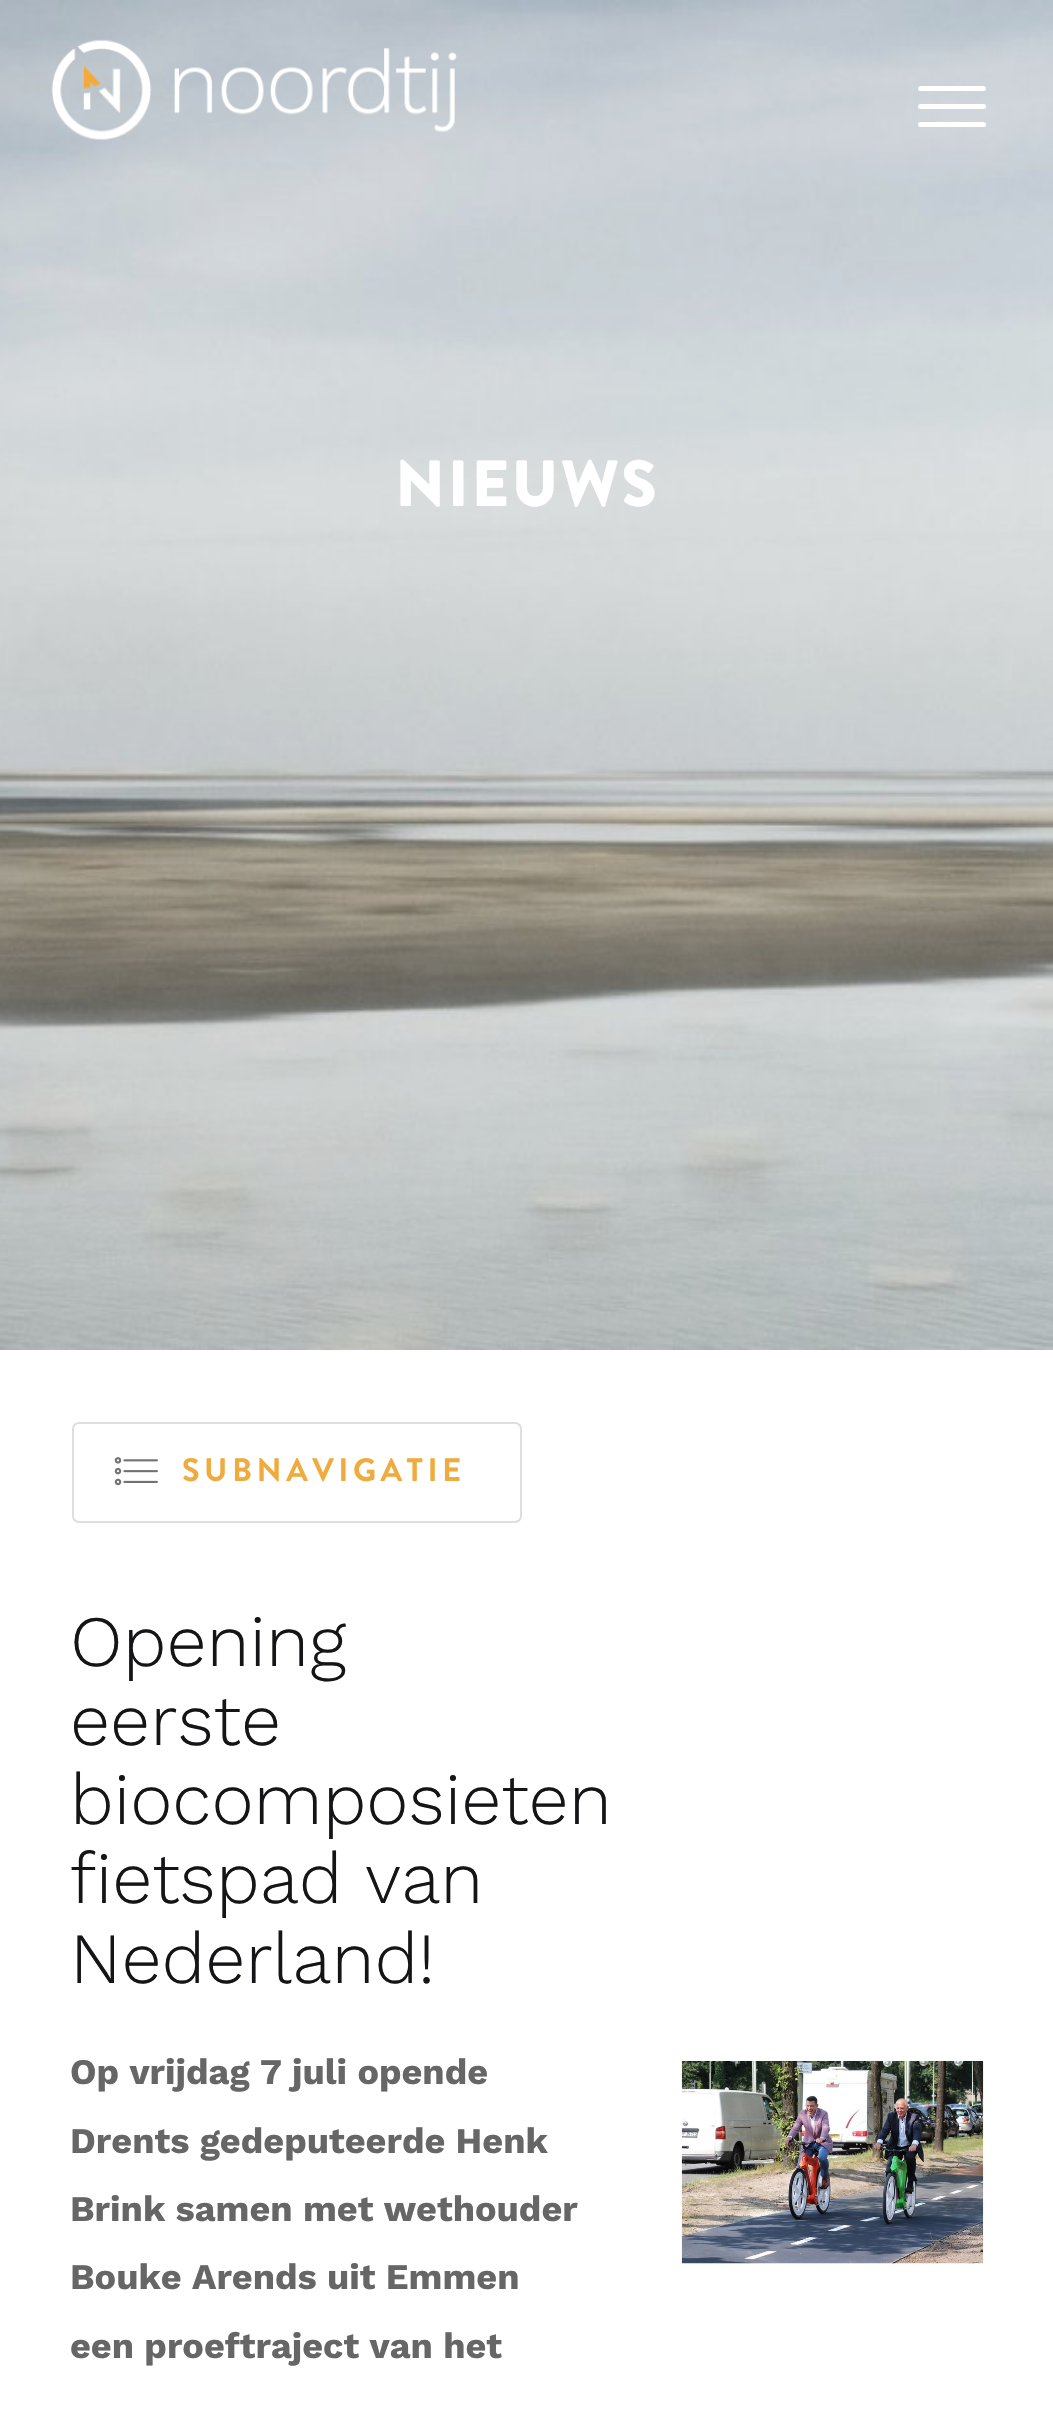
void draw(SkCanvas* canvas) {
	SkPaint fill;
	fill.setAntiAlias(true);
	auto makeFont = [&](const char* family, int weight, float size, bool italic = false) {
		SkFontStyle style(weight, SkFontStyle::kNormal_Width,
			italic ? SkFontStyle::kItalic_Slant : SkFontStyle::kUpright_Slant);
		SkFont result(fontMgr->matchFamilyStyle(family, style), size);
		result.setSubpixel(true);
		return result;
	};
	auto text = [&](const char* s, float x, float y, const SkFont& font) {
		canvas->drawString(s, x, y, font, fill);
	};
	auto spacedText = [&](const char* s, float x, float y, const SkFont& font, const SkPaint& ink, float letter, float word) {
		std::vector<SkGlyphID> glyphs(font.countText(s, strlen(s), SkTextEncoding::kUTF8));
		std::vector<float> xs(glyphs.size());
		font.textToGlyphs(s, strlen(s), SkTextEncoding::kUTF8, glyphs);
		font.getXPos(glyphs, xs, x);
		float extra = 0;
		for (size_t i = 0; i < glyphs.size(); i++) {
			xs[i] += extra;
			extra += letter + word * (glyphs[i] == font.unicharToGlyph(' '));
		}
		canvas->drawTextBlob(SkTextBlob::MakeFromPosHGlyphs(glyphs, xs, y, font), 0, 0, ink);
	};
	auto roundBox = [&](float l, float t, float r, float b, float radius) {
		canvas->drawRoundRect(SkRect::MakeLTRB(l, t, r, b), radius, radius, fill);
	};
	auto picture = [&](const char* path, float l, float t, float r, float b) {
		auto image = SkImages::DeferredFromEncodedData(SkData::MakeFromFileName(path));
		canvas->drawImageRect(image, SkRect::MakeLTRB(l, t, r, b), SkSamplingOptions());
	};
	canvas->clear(0xFFFFFFFF);
	picture("image1.png", 0, 0, 1053, 1350);
	picture("image0.png", 51, 39, 457, 140);
	fill.setColor(0xFFFFFFFF);
	roundBox(918, 104, 986, 109, 2.5f);
	roundBox(918, 86, 986, 91, 2.5f);
	roundBox(918, 122, 986, 127, 2.5f);
	fill.setStyle(SkPaint::kStroke_Style);
	fill.setStrokeWidth(2);
	fill.setColor(0xFFDEDEDE);
	canvas->drawRoundRect(SkRect::MakeLTRB(73, 1423, 521, 1522), 6, 6, fill);
	picture("image2.png", 114, 1457, 158, 1486);
	picture("image3.png", 681, 2061, 984, 2264);
	auto font1 = makeFont("Brandon Grotesque", 900, 65);
	fill.setStyle(SkPaint::kFill_Style);
	fill.setColor(0xFFFFFFFF);
	spacedText("NIEUWS", 395, 506, font1, fill, 2.25f, 0);
	auto font2 = makeFont("Brandon Grotesque", 700, 32.5f);
	fill.setColor(0xFFEFAB3E);
	spacedText("SUBNAVIGATIE", 182, 1481, font2, fill, 4.5f, 0);
	auto font3 = makeFont("Work Sans", 300, 72);
	fill.setColor(0xFF151416);
	text("Opening", 70, 1666, font3);
	text("eerste", 70, 1745, font3);
	text("biocomposieten", 70, 1824, font3);
	text("fietspad van", 70, 1903, font3);
	text("Nederland!", 70, 1983, font3);
	auto font4 = makeFont("Work Sans", 700, 36);
	fill.setColor(0xFF666666);
	text("Op vrijdag 7 juli opende", 70, 2084, font4);
	text("Drents gedeputeerde Henk", 70, 2153, font4);
	text("Brink samen met wethouder", 70, 2221, font4);
	text("Bouke Arends uit Emmen", 70, 2289, font4);
	text("een proeftraject van het", 70, 2358, font4);
}
